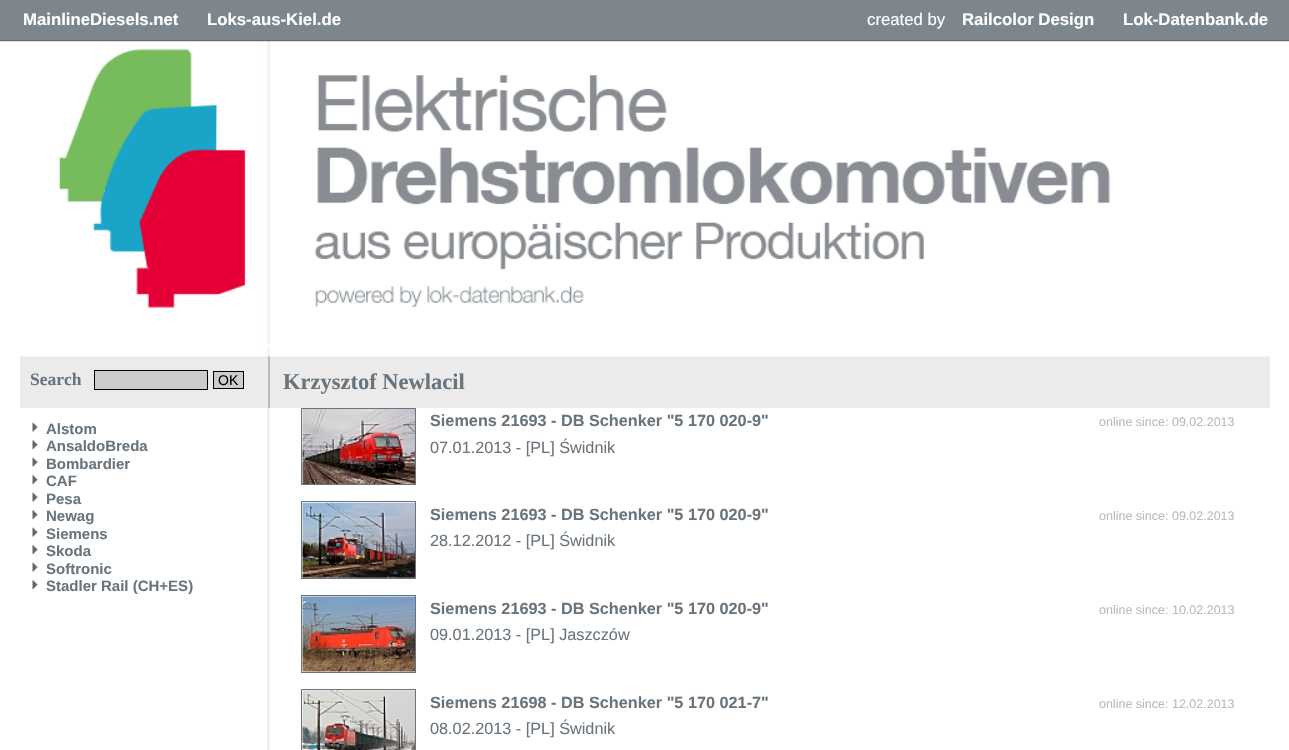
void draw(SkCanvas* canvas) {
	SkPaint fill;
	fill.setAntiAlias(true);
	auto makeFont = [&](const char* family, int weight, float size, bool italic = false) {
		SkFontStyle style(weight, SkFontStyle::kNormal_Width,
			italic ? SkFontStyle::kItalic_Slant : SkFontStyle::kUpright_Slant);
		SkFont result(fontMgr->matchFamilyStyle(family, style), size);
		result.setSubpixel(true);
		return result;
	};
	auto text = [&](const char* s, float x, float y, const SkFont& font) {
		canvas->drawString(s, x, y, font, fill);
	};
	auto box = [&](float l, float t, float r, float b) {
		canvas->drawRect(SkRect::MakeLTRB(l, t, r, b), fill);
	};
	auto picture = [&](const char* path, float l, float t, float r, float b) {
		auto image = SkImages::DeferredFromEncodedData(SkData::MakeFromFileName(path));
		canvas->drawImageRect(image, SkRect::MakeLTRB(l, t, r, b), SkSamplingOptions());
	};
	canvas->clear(0xFFFFFFFF);
	fill.setColor(0xFF7D868D);
	box(0, 0, 1289, 40);
	fill.setColor(0xFFEBEBEB);
	box(20, 356, 268, 408);
	fill.setColor(0xFFBBBBBB);
	box(268, 356, 270, 408);
	fill.setColor(0xFFEBEBEB);
	box(270, 356, 1270, 408);
	picture("image1.png", 20, 41, 1270, 357);
	picture("image0.png", 0, 40, 1289, 42);
	fill.setColor(0xFFEFEFEF);
	box(267, 408, 270, 750);
	fill.setColor(0xFFCCCCCC);
	canvas->drawRect(SkRect::MakeLTRB(94.5f, 370.5f, 207.5f, 389.5f), fill);
	fill.setStyle(SkPaint::kStroke_Style);
	fill.setStrokeWidth(1);
	fill.setColor(0xFF000000);
	canvas->drawRect(SkRect::MakeLTRB(94.5f, 370.5f, 207.5f, 389.5f), fill);
	fill.setStyle(SkPaint::kFill_Style);
	fill.setColor(0xFFCCCCCC);
	canvas->drawRect(SkRect::MakeLTRB(213.5f, 371.5f, 243.5f, 388.5f), fill);
	fill.setStyle(SkPaint::kStroke_Style);
	fill.setColor(0xFF000000);
	canvas->drawRect(SkRect::MakeLTRB(213.5f, 371.5f, 243.5f, 388.5f), fill);
	picture("image2.png", 32, 422, 38, 432);
	picture("image3.png", 32, 440, 38, 450);
	picture("image2.png", 32, 457, 38, 467);
	picture("image3.png", 32, 475, 38, 485);
	picture("image2.png", 32, 492, 38, 502);
	picture("image3.png", 32, 510, 38, 520);
	picture("image2.png", 32, 527, 38, 537);
	picture("image3.png", 32, 545, 38, 555);
	picture("image2.png", 32, 562, 38, 572);
	picture("image3.png", 32, 580, 38, 590);
	fill.setColor(0xFF6A747C);
	canvas->drawRect(SkRect::MakeLTRB(301.5f, 408.5f, 415.5f, 484.5f), fill);
	picture("image4.png", 302, 409, 415, 484);
	canvas->drawRect(SkRect::MakeLTRB(301.5f, 501.5f, 415.5f, 578.5f), fill);
	picture("image5.png", 302, 502, 415, 578);
	canvas->drawRect(SkRect::MakeLTRB(301.5f, 595.5f, 415.5f, 672.5f), fill);
	picture("image6.png", 302, 596, 415, 672);
	canvas->drawRect(SkRect::MakeLTRB(301.5f, 689.5f, 415.5f, 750.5f), fill);
	picture("image7.png", 302, 690, 415, 750);
	auto font1 = makeFont("Liberation Sans", 700, 16.75f);
	fill.setStyle(SkPaint::kFill_Style);
	fill.setColor(0xFFFFFFFF);
	text("MainlineDiesels.net", 23, 25, font1);
	text("Loks-aus-Kiel.de", 207, 25, font1);
	auto font2 = makeFont("Liberation Sans", 400, 16.75f);
	text("created by", 867, 25, font2);
	text("Railcolor Design", 962, 25, font1);
	text("Lok-Datenbank.de", 1123, 25, font1);
	auto font3 = makeFont("Liberation Serif", 700, 17.5f);
	fill.setColor(0xFF6A747C);
	text("Search", 30, 385, font3);
	auto font4 = makeFont("Liberation Sans", 400, 14);
	fill.setColor(0xFF000000);
	text("OK", 218, 385, font4);
	auto font5 = makeFont("Liberation Sans", 700, 15);
	fill.setColor(0xFF6A747C);
	text("Alstom", 46, 434, font5);
	text("AnsaldoBreda", 46, 451, font5);
	text("Bombardier", 46, 469, font5);
	text("CAF", 46, 486, font5);
	text("Pesa", 46, 504, font5);
	text("Newag", 46, 521, font5);
	text("Siemens", 46, 539, font5);
	text("Skoda", 46, 556, font5);
	text("Softronic", 46, 574, font5);
	text("Stadler Rail (CH+ES)", 46, 591, font5);
	auto font6 = makeFont("Liberation Serif", 700, 22.5f);
	text("Krzysztof Newlacil", 283, 389, font6);
	auto font7 = makeFont("Liberation Sans", 700, 16.25f);
	text("Siemens 21693 - DB Schenker \"5 170 020-9\"", 430, 426, font7);
	auto font8 = makeFont("Liberation Sans", 400, 12.5f);
	fill.setColor(0xFFBBBBBB);
	text("online since: 09.02.2013", 1099, 426, font8);
	auto font9 = makeFont("Liberation Sans", 400, 16.25f);
	fill.setColor(0xFF6A747C);
	text("07.01.2013 - [PL] Świdnik", 430, 453, font9);
	text("Siemens 21693 - DB Schenker \"5 170 020-9\"", 430, 520, font7);
	fill.setColor(0xFFBBBBBB);
	text("online since: 09.02.2013", 1099, 520, font8);
	fill.setColor(0xFF6A747C);
	text("28.12.2012 - [PL] Świdnik", 430, 546, font9);
	text("Siemens 21693 - DB Schenker \"5 170 020-9\"", 430, 614, font7);
	fill.setColor(0xFFBBBBBB);
	text("online since: 10.02.2013", 1099, 614, font8);
	fill.setColor(0xFF6A747C);
	text("09.01.2013 - [PL] Jaszczów", 430, 640, font9);
	text("Siemens 21698 - DB Schenker \"5 170 021-7\"", 430, 708, font7);
	fill.setColor(0xFFBBBBBB);
	text("online since: 12.02.2013", 1099, 708, font8);
	fill.setColor(0xFF6A747C);
	text("08.02.2013 - [PL] Świdnik", 430, 734, font9);
}
